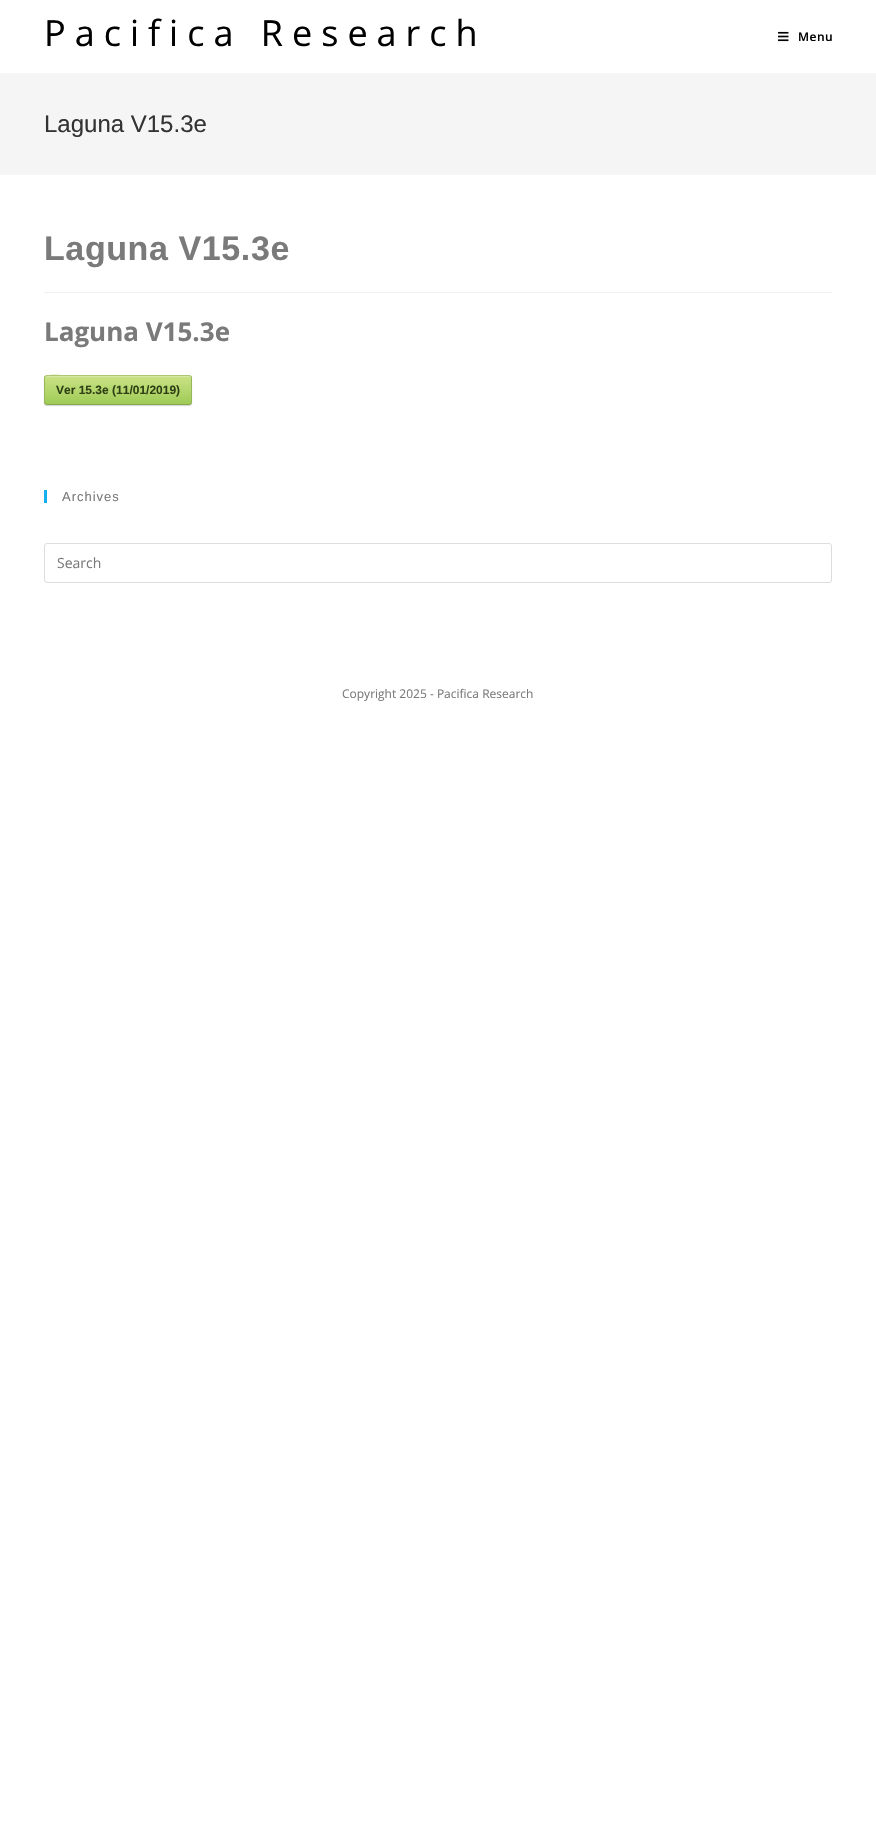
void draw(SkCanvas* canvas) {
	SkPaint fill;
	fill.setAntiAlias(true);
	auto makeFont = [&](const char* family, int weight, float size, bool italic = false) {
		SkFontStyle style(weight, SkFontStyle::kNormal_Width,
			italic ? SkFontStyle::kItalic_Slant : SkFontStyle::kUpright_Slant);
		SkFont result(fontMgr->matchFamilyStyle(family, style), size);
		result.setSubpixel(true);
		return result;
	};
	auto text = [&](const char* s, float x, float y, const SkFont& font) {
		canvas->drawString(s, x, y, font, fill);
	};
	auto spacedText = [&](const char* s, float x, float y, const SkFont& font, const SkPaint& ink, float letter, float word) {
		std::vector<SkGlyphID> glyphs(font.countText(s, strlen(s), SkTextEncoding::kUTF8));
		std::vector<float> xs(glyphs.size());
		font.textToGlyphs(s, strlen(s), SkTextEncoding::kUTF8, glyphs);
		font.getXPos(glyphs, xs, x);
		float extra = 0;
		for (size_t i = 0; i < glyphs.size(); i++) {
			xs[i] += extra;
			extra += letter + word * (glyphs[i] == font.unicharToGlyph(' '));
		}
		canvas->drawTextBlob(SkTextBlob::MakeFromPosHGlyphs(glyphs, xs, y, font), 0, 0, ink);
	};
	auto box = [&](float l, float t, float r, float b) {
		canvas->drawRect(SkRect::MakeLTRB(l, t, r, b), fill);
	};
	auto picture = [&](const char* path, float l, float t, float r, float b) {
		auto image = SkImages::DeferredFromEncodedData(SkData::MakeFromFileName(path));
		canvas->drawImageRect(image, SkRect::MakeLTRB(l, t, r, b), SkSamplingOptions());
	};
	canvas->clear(0xFFFFFFFF);
	picture("image0.png", 778, 31, 789, 42);
	fill.setColor(0xFFF5F5F5);
	box(0, 73, 876, 175);
	fill.setColor(0xFFF1F1F1);
	box(44, 292, 832, 293);
	fill.setColor(0xFFD3D3D3);
	fill.setMaskFilter(SkMaskFilter::MakeBlur(kNormal_SkBlurStyle, 0.5f));
	canvas->drawRoundRect(SkRect::MakeLTRB(44, 376, 192, 406), 3, 3, fill);
	fill.setMaskFilter(nullptr);
	canvas->save();
	canvas->clipPath(SkPathBuilder().moveTo(47, 375).lineTo(189, 375).cubicTo(190.5f, 375, 192, 376.5f, 192, 378).lineTo(192, 402).cubicTo(192, 403.5f, 190.5f, 405, 189, 405).lineTo(47, 405).cubicTo(45.5f, 405, 44, 403.5f, 44, 402).lineTo(44, 378).cubicTo(44, 376.5f, 45.5f, 375, 47, 375).close().detach(), true);
	{
		const SkColor colors[] = {0xFFCAE285, 0xFF9FCB57};
		const float stops[] = {0, 1};
		const SkPoint ends[] = {{45, 376}, {45, 404}};
		fill.setShader(SkGradientShader::MakeLinear(ends, colors, stops, 2, SkTileMode::kClamp));
		fill.setAlpha(255);
	}
	box(44, 376, 192, 404);
	canvas->restore();
	fill.setShader(nullptr);
	fill.setColor(0xFFD7E9A4);
	canvas->drawPath(SkPathBuilder().moveTo(47, 377).lineTo(189, 377).cubicTo(190, 377, 191, 378, 191, 379).cubicTo(191, 378, 191, 377, 190, 376).lineTo(71, 376).cubicTo(67, 376, 45, 371, 45, 379).cubicTo(45, 378, 46, 377, 47, 377).close().detach(), fill);
	fill.setStyle(SkPaint::kStroke_Style);
	fill.setStrokeWidth(1);
	fill.setColor(0xFFADC671);
	canvas->drawPath(SkPathBuilder().moveTo(45, 376).lineTo(47, 375.5f).lineTo(189, 375.5f).lineTo(191, 376).detach(), fill);
	fill.setColor(0xFF98B65B);
	canvas->drawPath(SkPathBuilder().moveTo(191, 376).cubicTo(191, 376.5f, 191.5f, 377.5f, 191.5f, 378).lineTo(191.5f, 402).cubicTo(191.5f, 402.5f, 191, 403.5f, 191, 404).detach(), fill);
	fill.setColor(0xFF87AA4A);
	canvas->drawPath(SkPathBuilder().moveTo(191, 404).lineTo(189, 404.5f).lineTo(47, 404.5f).lineTo(45, 404).detach(), fill);
	fill.setColor(0xFF98B65B);
	canvas->drawPath(SkPathBuilder().moveTo(45, 404).cubicTo(45, 403.5f, 44.5f, 402.5f, 44.5f, 402).lineTo(44.5f, 378).cubicTo(44.5f, 377.5f, 45, 376.5f, 45, 376).detach(), fill);
	fill.setStyle(SkPaint::kFill_Style);
	fill.setColor(0xFF13AFF0);
	box(44, 490, 47, 503);
	fill.setStyle(SkPaint::kStroke_Style);
	fill.setColor(0xFFDDDDDD);
	canvas->drawRoundRect(SkRect::MakeLTRB(44.5f, 543.5f, 831.5f, 582.5f), 2.5f, 2.5f, fill);
	auto font1 = makeFont("Open Sans", 400, 36);
	fill.setStyle(SkPaint::kFill_Style);
	fill.setColor(0xFF000000);
	spacedText("Pacifica Research", 44, 46, font1, fill, 9, 0);
	auto font2 = makeFont("Open Sans", 600, 12);
	spacedText("Menu", 798, 41, font2, fill, 0.5f, 0);
	auto font3 = makeFont("Liberation Sans", 400, 24);
	fill.setColor(0xFF333333);
	text("Laguna V15.3e", 44, 132, font3);
	auto font4 = makeFont("Liberation Sans", 700, 34);
	fill.setColor(0xFF7A7A7A);
	spacedText("Laguna V15.3e", 44, 260, font4, fill, 0.6f, 0);
	auto font5 = makeFont("Open Sans", 700, 26);
	text("Laguna V15.3e", 44, 341, font5);
	auto font6 = makeFont("Liberation Sans", 700, 12);
	fill.setColor(0xFF2F4014);
	text("Ver 15.3e (11/01/2019)", 56, 394, font6);
	auto font7 = makeFont("Liberation Sans", 400, 13);
	fill.setColor(0xFF7A7A7A);
	spacedText("Archives", 62, 501, font7, fill, 1, 0);
	auto font8 = makeFont("Open Sans", 400, 14);
	text("Search", 57, 568, font8);
	auto font9 = makeFont("Open Sans", 400, 12);
	text("Copyright 2025 - Pacifica Research", 342, 698, font9);
}
